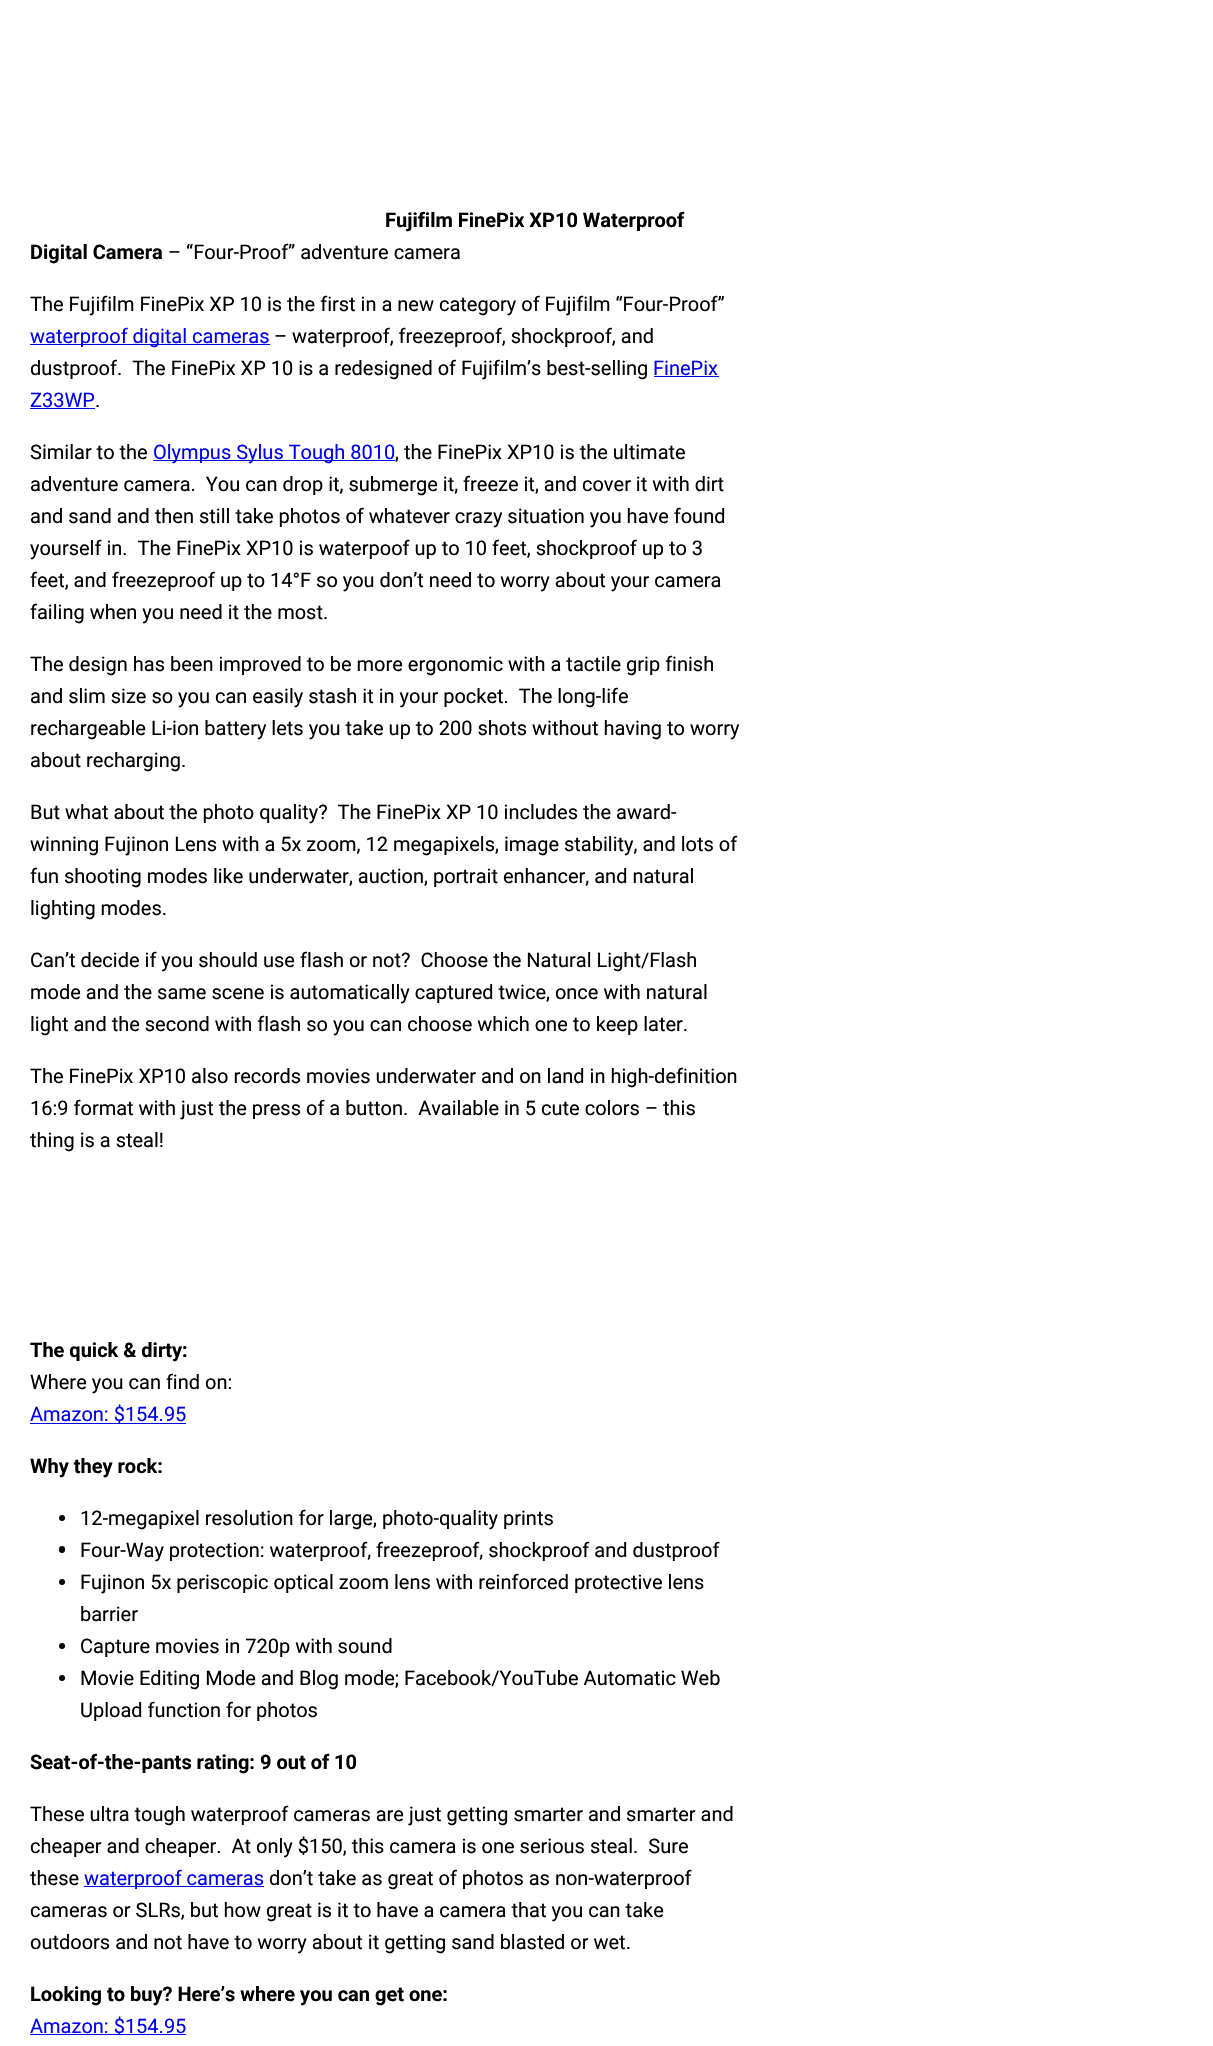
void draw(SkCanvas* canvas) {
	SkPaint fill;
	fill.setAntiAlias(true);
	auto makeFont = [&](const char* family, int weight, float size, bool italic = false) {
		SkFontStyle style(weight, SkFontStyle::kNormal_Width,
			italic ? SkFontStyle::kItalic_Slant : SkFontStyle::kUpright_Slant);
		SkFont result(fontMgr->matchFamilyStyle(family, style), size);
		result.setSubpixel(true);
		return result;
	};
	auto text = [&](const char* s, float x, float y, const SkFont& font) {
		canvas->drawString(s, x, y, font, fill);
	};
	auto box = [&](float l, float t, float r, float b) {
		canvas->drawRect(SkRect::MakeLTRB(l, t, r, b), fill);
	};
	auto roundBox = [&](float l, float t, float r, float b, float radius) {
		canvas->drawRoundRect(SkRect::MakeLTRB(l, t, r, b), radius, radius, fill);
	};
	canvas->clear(0xFFFFFFFF);
	fill.setColor(0xFF0000EE);
	box(30, 344, 270, 345);
	box(654, 376, 719, 377);
	box(30, 408, 95, 409);
	box(153, 460, 395, 461);
	box(30, 1423, 186, 1424);
	fill.setColor(0xFF000000);
	canvas->drawCircle(62, 1518, 3, fill);
	roundBox(59, 1546, 65, 1553, 3);
	canvas->drawCircle(62, 1582, 3, fill);
	canvas->drawCircle(62, 1646, 3, fill);
	canvas->drawCircle(62, 1678, 3, fill);
	fill.setColor(0xFF0000EE);
	box(84, 1886, 264, 1887);
	box(30, 2034, 186, 2035);
	auto font1 = makeFont("Roboto", 700, 20);
	fill.setColor(0xFF000000);
	text("Fujifilm FinePix XP10 Waterproof", 385, 227, font1);
	text("Digital Camera", 30, 259, font1);
	auto font2 = makeFont("Roboto", 400, 20);
	text("– “Four-Proof” adventure camera", 168, 259, font2);
	text("The Fujifilm FinePix XP 10 is the first in a new category of Fujifilm “Four-Proof”", 30, 311, font2);
	fill.setColor(0xFF0000EE);
	text("waterproof digital cameras", 30, 343, font2);
	fill.setColor(0xFF000000);
	text("– waterproof, freezeproof, shockproof, and", 274, 343, font2);
	text("dustproof.  The FinePix XP 10 is a redesigned of Fujifilm’s best-selling", 30, 375, font2);
	fill.setColor(0xFF0000EE);
	text("FinePix", 653, 375, font2);
	text("Z33WP", 30, 407, font2);
	fill.setColor(0xFF000000);
	text(".", 95, 407, font2);
	text("Similar to the", 30, 459, font2);
	fill.setColor(0xFF0000EE);
	text("Olympus Sylus Tough 8010", 153, 459, font2);
	fill.setColor(0xFF000000);
	text(", the FinePix XP10 is the ultimate", 395, 459, font2);
	text("adventure camera.  You can drop it, submerge it, freeze it, and cover it with dirt", 30, 491, font2);
	text("and sand and then still take photos of whatever crazy situation you have found", 30, 523, font2);
	text("yourself in.  The FinePix XP10 is waterpoof up to 10 feet, shockproof up to 3", 30, 555, font2);
	text("feet, and freezeproof up to 14°F so you don’t need to worry about your camera", 30, 587, font2);
	text("failing when you need it the most.", 30, 619, font2);
	text("The design has been improved to be more ergonomic with a tactile grip finish", 30, 671, font2);
	text("and slim size so you can easily stash it in your pocket.  The long-life", 30, 703, font2);
	text("rechargeable Li-ion battery lets you take up to 200 shots without having to worry", 30, 735, font2);
	text("about recharging.", 30, 767, font2);
	text("But what about the photo quality?  The FinePix XP 10 includes the award-", 30, 819, font2);
	text("winning Fujinon Lens with a 5x zoom, 12 megapixels, image stability, and lots of", 30, 851, font2);
	text("fun shooting modes like underwater, auction, portrait enhancer, and natural", 30, 883, font2);
	text("lighting modes.", 30, 915, font2);
	text("Can’t decide if you should use flash or not?  Choose the Natural Light/Flash", 30, 967, font2);
	text("mode and the same scene is automatically captured twice, once with natural", 30, 999, font2);
	text("light and the second with flash so you can choose which one to keep later.", 30, 1031, font2);
	text("The FinePix XP10 also records movies underwater and on land in high-definition", 30, 1083, font2);
	text("16:9 format with just the press of a button.  Available in 5 cute colors – this", 30, 1115, font2);
	text("thing is a steal!", 30, 1147, font2);
	text("The quick & dirty:", 30, 1357, font1);
	text("Where you can find on:", 30, 1389, font2);
	fill.setColor(0xFF0000EE);
	text("Amazon: $154.95", 30, 1421, font2);
	fill.setColor(0xFF000000);
	text("Why they rock:", 30, 1473, font1);
	text("12-megapixel resolution for large, photo-quality prints", 80, 1525, font2);
	text("Four-Way protection: waterproof, freezeproof, shockproof and dustproof", 80, 1557, font2);
	text("Fujinon 5x periscopic optical zoom lens with reinforced protective lens", 80, 1589, font2);
	text("barrier", 80, 1621, font2);
	text("Capture movies in 720p with sound", 80, 1653, font2);
	text("Movie Editing Mode and Blog mode; Facebook/YouTube Automatic Web", 80, 1685, font2);
	text("Upload function for photos", 80, 1717, font2);
	text("Seat-of-the-pants rating: 9 out of 10", 30, 1769, font1);
	text("These ultra tough waterproof cameras are just getting smarter and smarter and", 30, 1821, font2);
	text("cheaper and cheaper.  At only $150, this camera is one serious steal.  Sure", 30, 1853, font2);
	text("these", 30, 1885, font2);
	fill.setColor(0xFF0000EE);
	text("waterproof cameras", 84, 1885, font2);
	fill.setColor(0xFF000000);
	text("don’t take as great of photos as non-waterproof", 269, 1885, font2);
	text("cameras or SLRs, but how great is it to have a camera that you can take", 30, 1917, font2);
	text("outdoors and not have to worry about it getting sand blasted or wet.", 30, 1949, font2);
	text("Looking to buy? Here’s where you can get one:", 30, 2001, font1);
	fill.setColor(0xFF0000EE);
	text("Amazon: $154.95", 30, 2033, font2);
}
